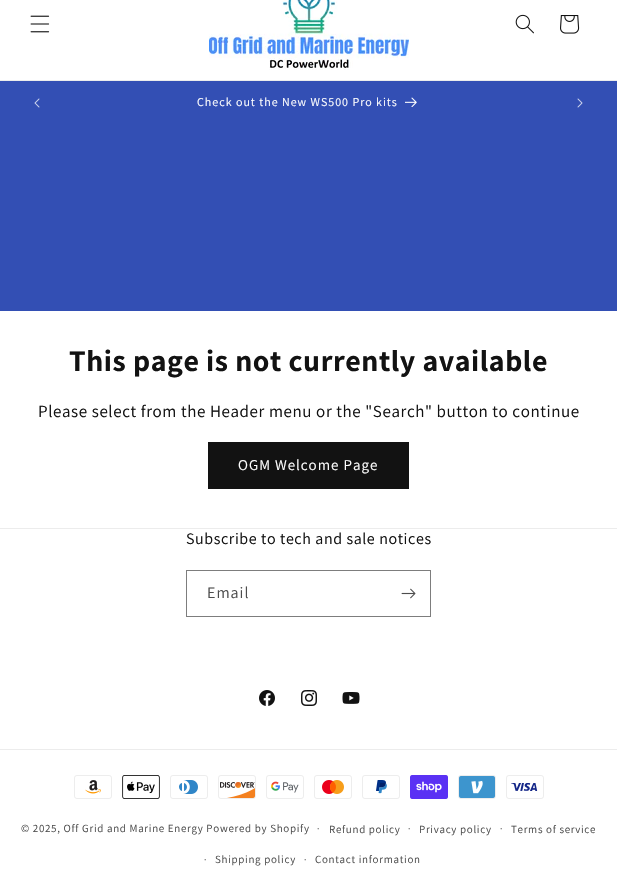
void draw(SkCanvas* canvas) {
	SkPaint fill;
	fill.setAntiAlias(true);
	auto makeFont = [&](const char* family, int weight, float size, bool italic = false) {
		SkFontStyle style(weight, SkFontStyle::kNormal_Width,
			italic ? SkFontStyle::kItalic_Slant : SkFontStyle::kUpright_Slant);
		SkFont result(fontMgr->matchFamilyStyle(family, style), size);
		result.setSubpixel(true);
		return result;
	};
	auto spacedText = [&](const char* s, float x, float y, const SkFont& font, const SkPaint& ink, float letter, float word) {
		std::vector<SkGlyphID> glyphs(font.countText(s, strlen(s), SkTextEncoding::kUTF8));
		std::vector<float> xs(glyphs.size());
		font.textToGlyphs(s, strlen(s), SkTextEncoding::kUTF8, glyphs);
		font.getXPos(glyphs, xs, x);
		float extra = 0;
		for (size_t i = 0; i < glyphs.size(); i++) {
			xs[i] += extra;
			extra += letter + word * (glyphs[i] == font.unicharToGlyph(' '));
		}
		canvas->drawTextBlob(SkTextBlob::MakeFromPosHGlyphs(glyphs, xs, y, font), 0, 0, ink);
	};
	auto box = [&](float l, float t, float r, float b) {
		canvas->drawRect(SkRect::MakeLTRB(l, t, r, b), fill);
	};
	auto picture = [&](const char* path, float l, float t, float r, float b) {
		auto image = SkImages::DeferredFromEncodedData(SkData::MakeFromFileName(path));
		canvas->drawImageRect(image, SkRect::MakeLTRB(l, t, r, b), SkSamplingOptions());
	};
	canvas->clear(0xFFFFFFFF);
	fill.setColor(0xFFECECEC);
	box(0, 80, 617, 81);
	picture("image0.png", 30, 15, 50, 33);
	picture("image1.png", 209, 0, 409, 70);
	picture("image2.png", 515, 14, 534, 34);
	picture("image3.png", 560, 15, 580, 34);
	fill.setColor(0xFF334FB4);
	box(0, 81, 617, 311);
	picture("image4.png", 34, 98, 40, 108);
	picture("image5.png", 405, 97, 417, 107);
	picture("image6.png", 577, 98, 583, 108);
	fill.setColor(0xFF121212);
	box(208, 442, 409, 489);
	fill.setColor(0xFFECECEC);
	box(0, 528, 617, 529);
	fill.setStyle(SkPaint::kStroke_Style);
	fill.setStrokeWidth(1);
	fill.setColor(0xFF7D7D7D);
	canvas->drawRect(SkRect::MakeLTRB(186.5f, 570.5f, 430.5f, 616.5f), fill);
	picture("image7.png", 401, 588, 416, 599);
	picture("image8.png", 259, 690, 275, 706);
	picture("image9.png", 301, 690, 317, 706);
	picture("image10.png", 342, 692, 360, 704);
	fill.setStyle(SkPaint::kFill_Style);
	fill.setColor(0xFFECECEC);
	box(0, 749, 617, 750);
	picture("image11.png", 74, 775, 112, 799);
	picture("image12.png", 122, 775, 160, 799);
	picture("image13.png", 170, 775, 208, 799);
	picture("image14.png", 218, 775, 256, 799);
	picture("image15.png", 266, 775, 304, 799);
	picture("image16.png", 314, 775, 352, 799);
	picture("image17.png", 362, 775, 400, 799);
	picture("image18.png", 410, 775, 448, 799);
	picture("image19.png", 458, 775, 496, 799);
	picture("image20.png", 506, 775, 544, 799);
	auto font1 = makeFont("Assistant", 400, 12);
	fill.setColor(0xFFFFFFFF);
	spacedText("Check out the New WS500 Pro kits", 197, 106, font1, fill, 1, 0);
	auto font2 = makeFont("Assistant", 700, 30);
	fill.setColor(0xFF121212);
	spacedText("This page is not currently available", 69, 371, font2, fill, 0.6f, 0);
	auto font3 = makeFont("Assistant", 400, 17);
	spacedText("Please select from the Header menu or the \"Search\" button to continue", 38, 417, font3, fill, 0.6f, 0);
	auto font4 = makeFont("Assistant", 400, 15);
	fill.setColor(0xFFFFFFFF);
	spacedText("OGM Welcome Page", 238, 470, font4, fill, 1, 0);
	auto font5 = makeFont("Assistant", 400, 16);
	fill.setColor(0xFF121212);
	spacedText("Subscribe to tech and sale notices", 186, 544, font5, fill, 0.6f, 0);
	fill.setColor(0xFF4D4D4D);
	spacedText("Email", 207, 598, font5, fill, 1, 0);
	auto font6 = makeFont("Assistant", 400, 11);
	spacedText("© 2025, Off Grid and Marine Energy Powered by Shopify", 21, 832, font6, fill, 0.7f, 0);
	auto font7 = makeFont("Assistant", 400, 10);
	spacedText("·", 317, 832, font7, fill, 0.7f, 0);
	spacedText("Refund policy", 329, 833, font6, fill, 0.7f, 0);
	spacedText("·", 408, 832, font7, fill, 0.7f, 0);
	spacedText("Privacy policy", 419, 833, font6, fill, 0.7f, 0);
	spacedText("·", 500, 832, font7, fill, 0.7f, 0);
	spacedText("Terms of service", 511, 833, font6, fill, 0.7f, 0);
	spacedText("·", 204, 863, font7, fill, 0.7f, 0);
	spacedText("Shipping policy", 215, 863, font6, fill, 0.7f, 0);
	spacedText("·", 304, 863, font7, fill, 0.7f, 0);
	spacedText("Contact information", 315, 863, font6, fill, 0.7f, 0);
}
